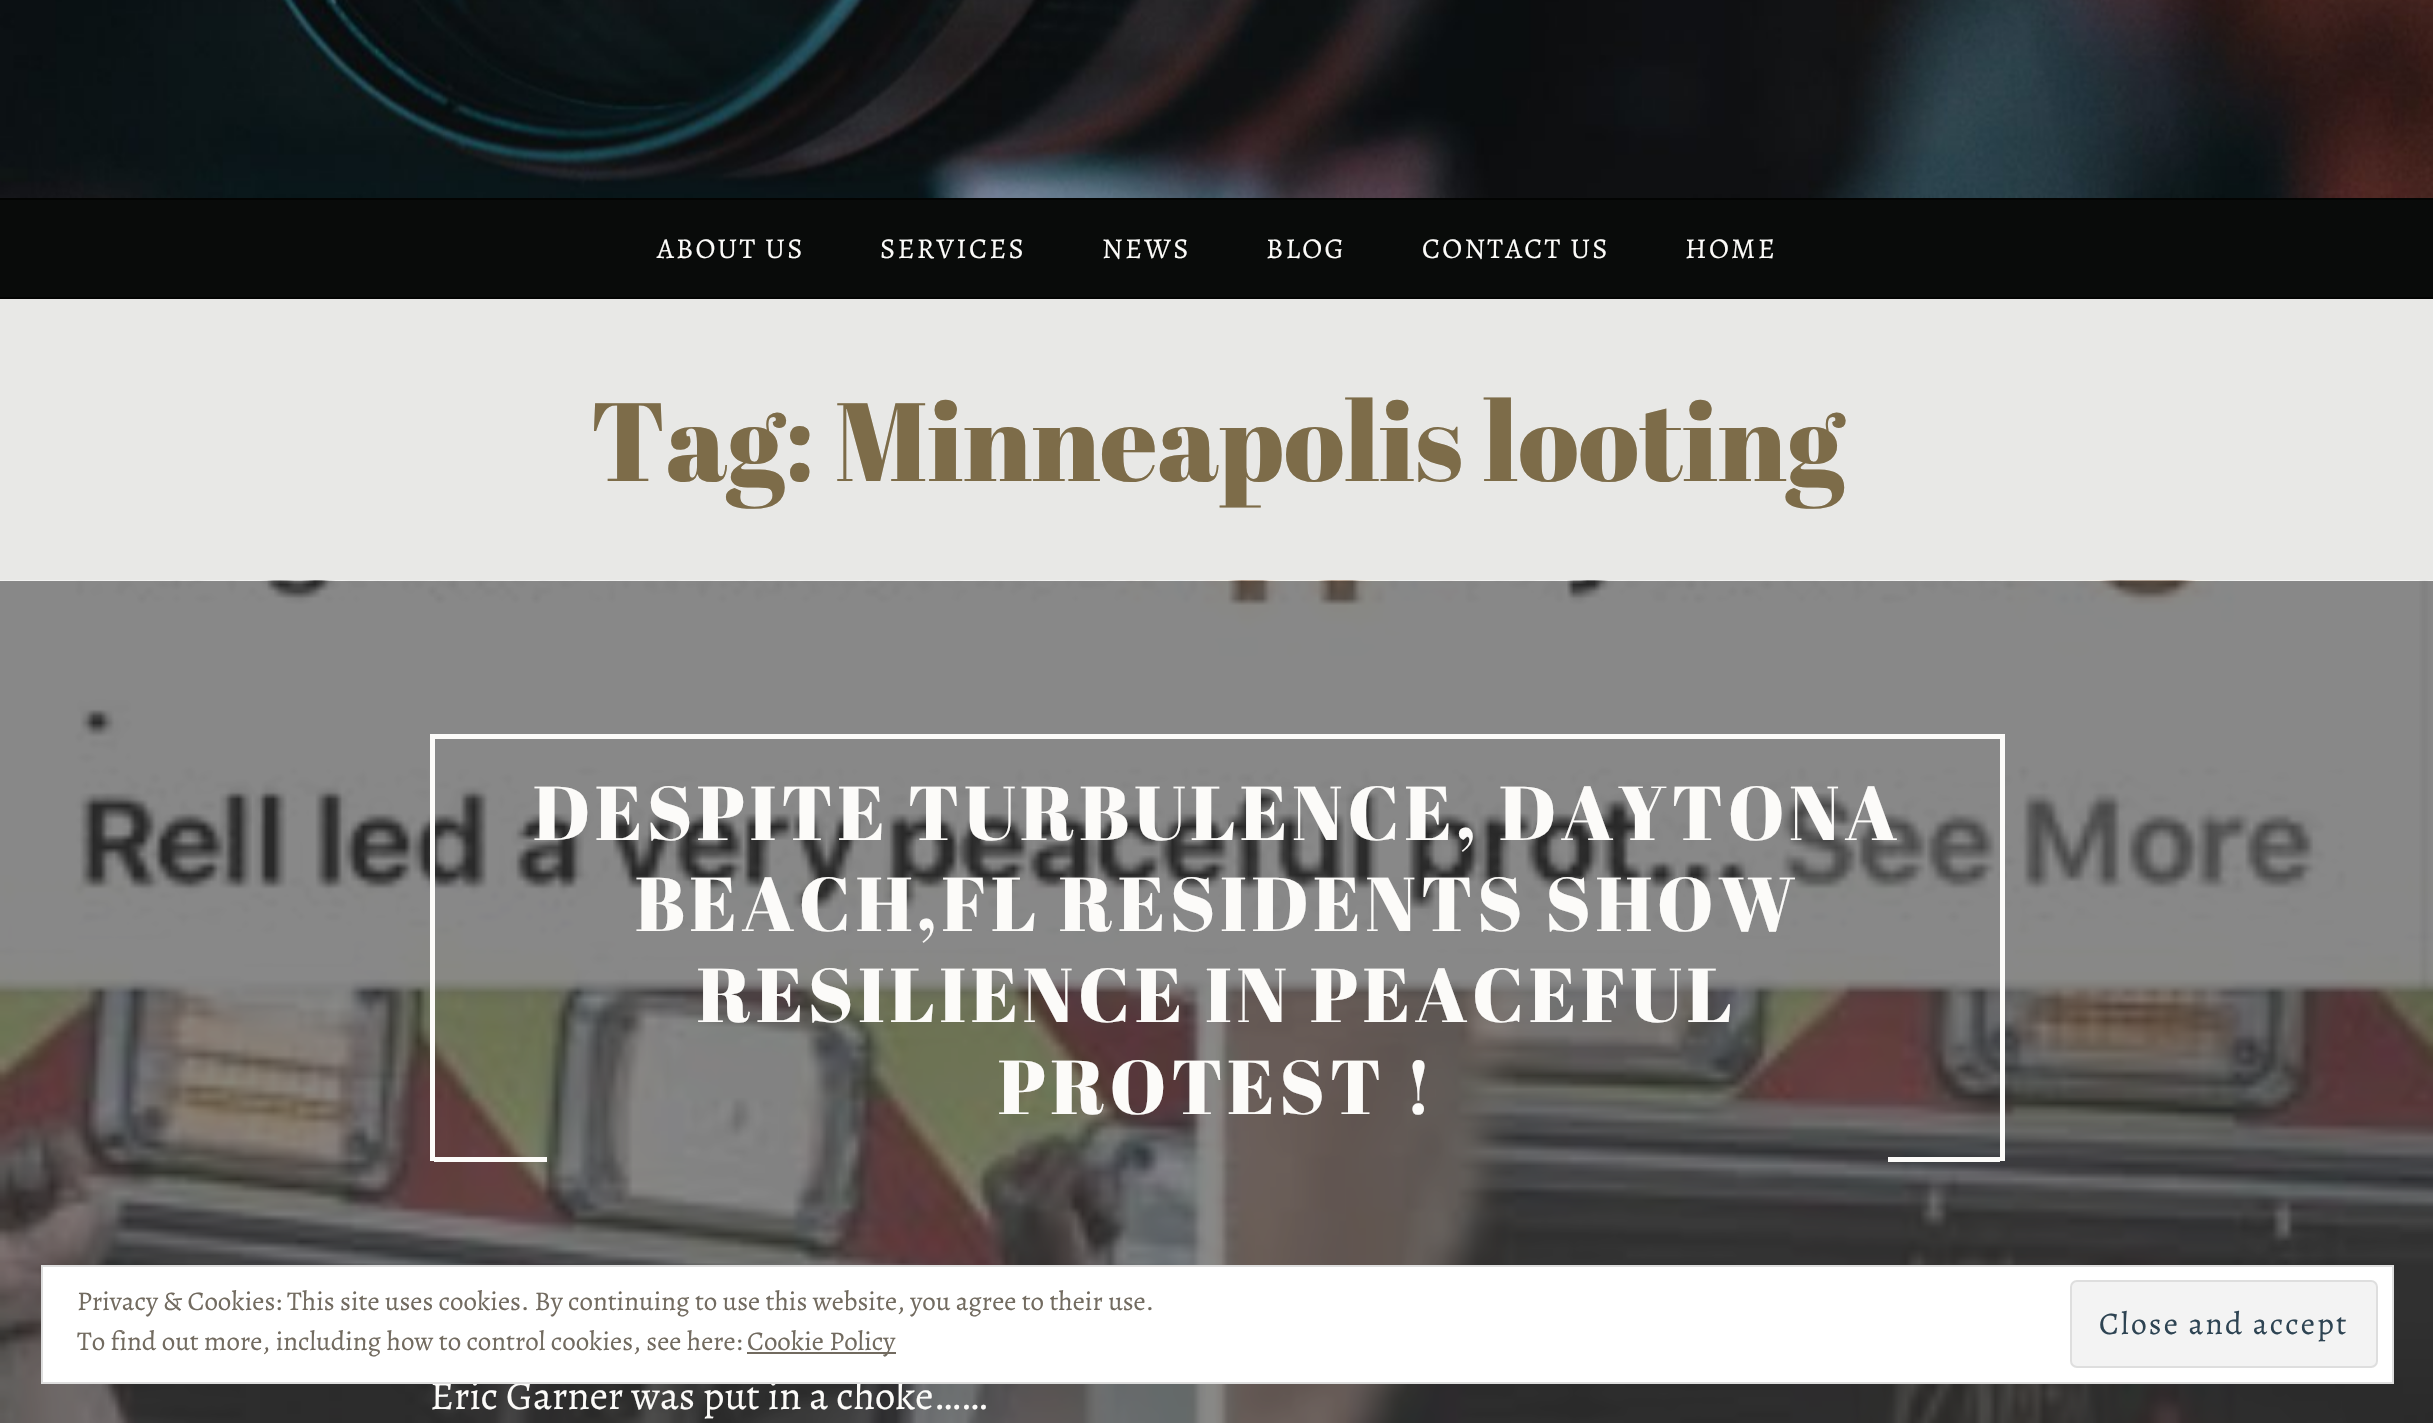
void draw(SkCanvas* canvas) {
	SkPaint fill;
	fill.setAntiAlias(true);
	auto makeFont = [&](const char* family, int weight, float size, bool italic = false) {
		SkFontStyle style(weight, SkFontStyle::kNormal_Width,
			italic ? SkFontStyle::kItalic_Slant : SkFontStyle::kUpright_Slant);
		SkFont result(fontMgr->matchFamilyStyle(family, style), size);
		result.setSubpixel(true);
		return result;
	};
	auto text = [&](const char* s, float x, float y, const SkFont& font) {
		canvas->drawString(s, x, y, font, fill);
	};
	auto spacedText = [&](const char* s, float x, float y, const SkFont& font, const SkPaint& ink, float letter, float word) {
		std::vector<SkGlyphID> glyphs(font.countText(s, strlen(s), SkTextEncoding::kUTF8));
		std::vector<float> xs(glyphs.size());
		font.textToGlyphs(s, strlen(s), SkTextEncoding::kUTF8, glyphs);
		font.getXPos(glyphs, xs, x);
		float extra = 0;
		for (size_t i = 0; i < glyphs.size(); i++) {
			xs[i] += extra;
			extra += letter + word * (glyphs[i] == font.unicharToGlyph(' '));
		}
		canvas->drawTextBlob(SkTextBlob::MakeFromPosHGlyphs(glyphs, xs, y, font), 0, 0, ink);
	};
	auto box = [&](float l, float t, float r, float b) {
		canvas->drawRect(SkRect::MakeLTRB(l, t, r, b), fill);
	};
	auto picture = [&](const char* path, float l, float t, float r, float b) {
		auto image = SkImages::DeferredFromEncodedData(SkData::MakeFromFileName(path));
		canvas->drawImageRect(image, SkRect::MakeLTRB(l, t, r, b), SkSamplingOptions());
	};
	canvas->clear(0xFFE8E8E6);
	picture("image0.png", 0, 0, 2433, 198);
	fill.setColor(0xFF090B0A);
	box(0, 200, 2433, 297);
	fill.setColor(0xFF030403);
	box(0, 198, 2433, 200);
	box(0, 297, 2433, 299);
	fill.setColor(0xFF525252);
	box(0, 581, 2433, 1423);
	picture("image1.png", 0, 580, 2433, 1423);
	fill.setColor(0xFFFCFBF9);
	box(430, 734, 2005, 739);
	box(2000, 734, 2005, 1161);
	box(430, 734, 435, 1161);
	box(434, 1157, 547, 1162);
	box(1888, 1157, 2000, 1162);
	auto font1 = makeFont("Alegreya", 400, 28.75f);
	spacedText("ABOUT US", 657, 258, font1, fill, 2.25f, 0);
	spacedText("SERVICES", 880, 258, font1, fill, 2.25f, 0);
	spacedText("NEWS", 1102, 258, font1, fill, 2.25f, 0);
	spacedText("BLOG", 1266, 258, font1, fill, 2.25f, 0);
	spacedText("CONTACT US", 1422, 258, font1, fill, 2.25f, 0);
	spacedText("HOME", 1685, 258, font1, fill, 2.25f, 0);
	auto font2 = makeFont("Abril Fatface", 400, 111.2f);
	fill.setColor(0xFF7D6C49);
	text("Tag: Minneapolis looting", 590, 481, font2);
	auto font3 = makeFont("Abril Fatface", 400, 76);
	fill.setColor(0xFFFCFBF9);
	spacedText("DESPITE TURBULENCE, DAYTONA", 533, 840, font3, fill, 4.5f, 0);
	spacedText("BEACH,FL RESIDENTS SHOW", 635, 931, font3, fill, 4.5f, 0);
	spacedText("RESILIENCE IN PEACEFUL", 697, 1022, font3, fill, 4.5f, 0);
	spacedText("PROTEST !", 998, 1114, font3, fill, 4.5f, 0);
	auto font4 = makeFont("Alegreya", 400, 40.5f);
	text("Eric Garner was put in a choke……", 430, 1409, font4);
	fill.setColor(0xFFFFFFFF);
	canvas->drawRect(SkRect::MakeLTRB(42, 1266, 2393, 1383), fill);
	fill.setStyle(SkPaint::kStroke_Style);
	fill.setStrokeWidth(2);
	fill.setColor(0xFFDEDEDE);
	canvas->drawRect(SkRect::MakeLTRB(42, 1266, 2393, 1383), fill);
	auto font5 = makeFont("Alegreya", 400, 27);
	fill.setStyle(SkPaint::kFill_Style);
	fill.setColor(0xFF726B60);
	text("Privacy & Cookies: This site uses cookies. By continuing to use this website, you agree to their use.", 77, 1310, font5);
	text("To find out more, including how to control cookies, see here:", 77, 1350, font5);
	box(747, 1352, 896, 1354);
	text("Cookie Policy", 747, 1350, font5);
	fill.setColor(0xFFF3F3F3);
	canvas->drawRoundRect(SkRect::MakeLTRB(2071, 1281, 2377, 1367), 6, 6, fill);
	fill.setStyle(SkPaint::kStroke_Style);
	fill.setColor(0xFFDEDEDE);
	canvas->drawRoundRect(SkRect::MakeLTRB(2071, 1281, 2377, 1367), 6, 6, fill);
	auto font6 = makeFont("Alegreya", 400, 31.5f);
	fill.setStyle(SkPaint::kFill_Style);
	fill.setColor(0xFF2E4453);
	spacedText("Close and accept", 2099, 1334, font6, fill, 2.25f, 0);
}
